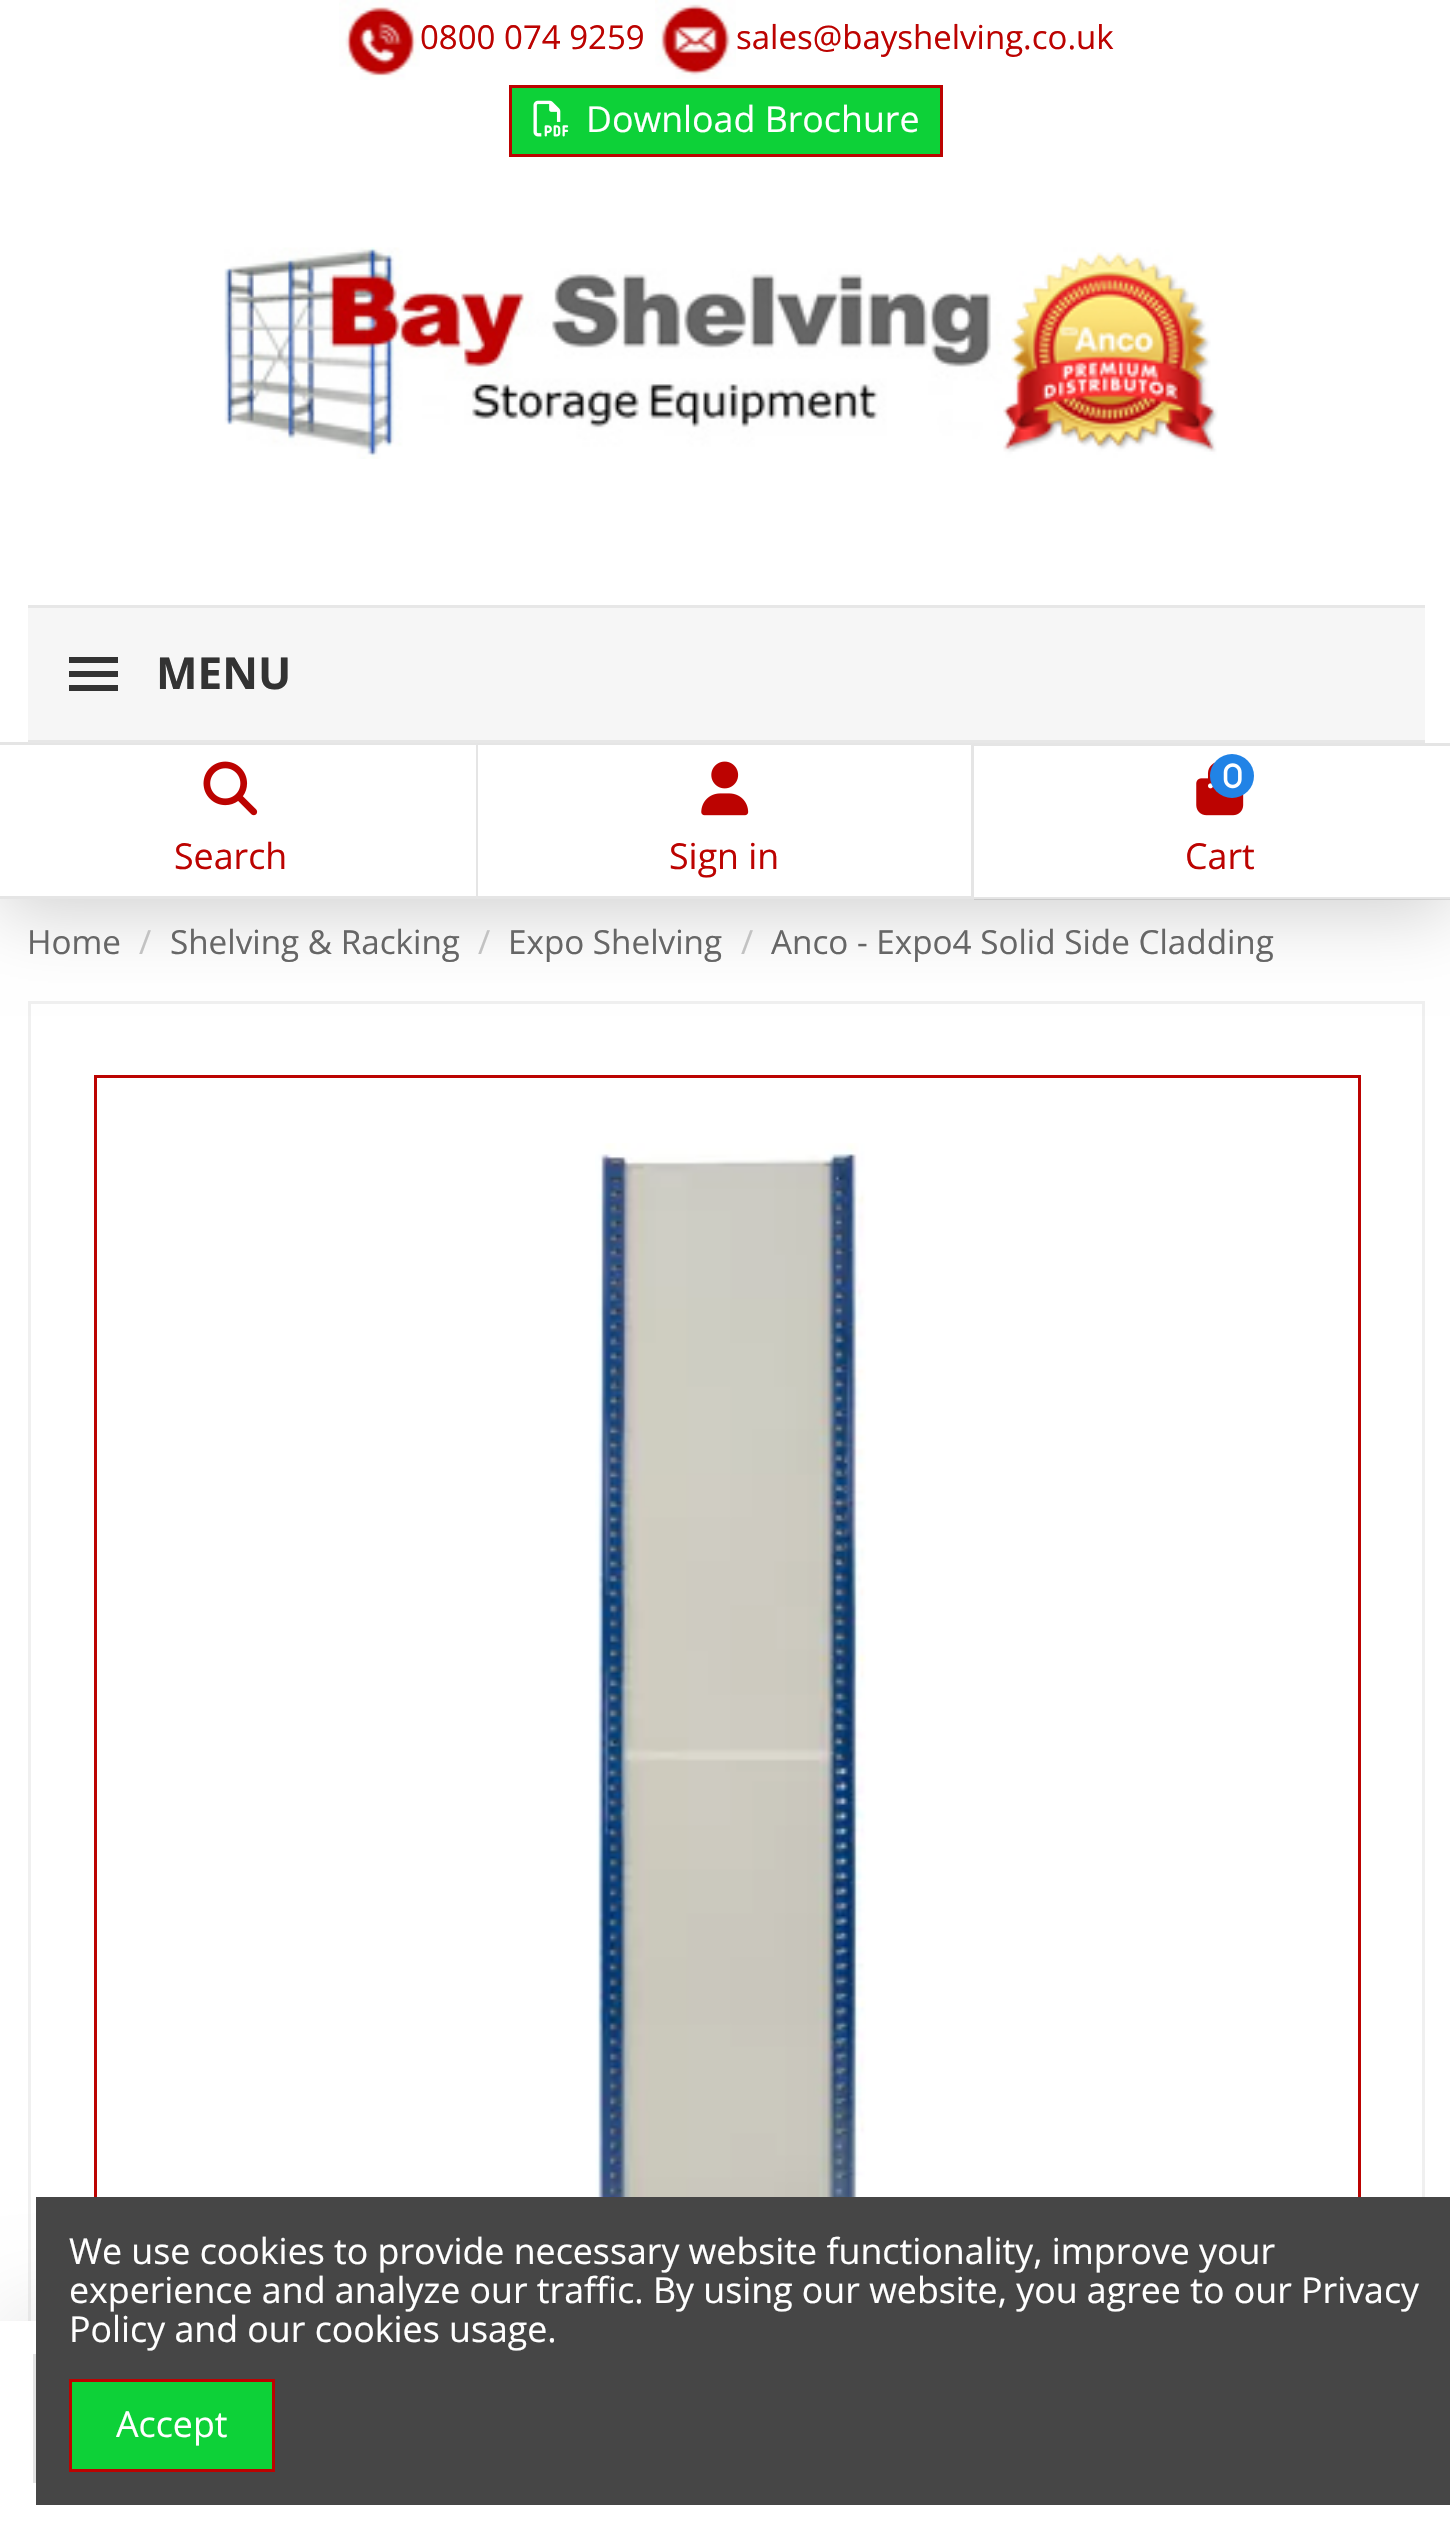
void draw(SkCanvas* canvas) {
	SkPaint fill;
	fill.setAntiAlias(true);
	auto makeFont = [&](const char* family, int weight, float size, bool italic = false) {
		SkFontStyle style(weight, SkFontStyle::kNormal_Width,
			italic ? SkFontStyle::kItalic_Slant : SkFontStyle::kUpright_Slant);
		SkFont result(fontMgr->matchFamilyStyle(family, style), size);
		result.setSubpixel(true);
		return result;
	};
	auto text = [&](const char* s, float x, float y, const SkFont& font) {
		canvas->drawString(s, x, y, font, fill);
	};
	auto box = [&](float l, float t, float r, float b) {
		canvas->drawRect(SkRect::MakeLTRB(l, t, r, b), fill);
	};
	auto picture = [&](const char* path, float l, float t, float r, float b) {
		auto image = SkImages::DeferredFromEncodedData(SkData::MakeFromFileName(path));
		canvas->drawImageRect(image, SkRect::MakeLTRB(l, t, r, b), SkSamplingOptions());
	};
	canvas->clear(0xFFFFFFFF);
	fill.setStyle(SkPaint::kStroke_Style);
	fill.setStrokeWidth(3);
	fill.setColor(0xFFF0F0F0);
	canvas->drawRect(SkRect::MakeLTRB(29.5f, 1002.5f, 1423.5f, 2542.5f), fill);
	fill.setStyle(SkPaint::kFill_Style);
	fill.setColor(0x2E000000);
	fill.setMaskFilter(SkMaskFilter::MakeBlur(kNormal_SkBlurStyle, 34.5f));
	canvas->drawRect(SkRect::MakeLTRB(0, 14, 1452, 913), fill);
	fill.setMaskFilter(nullptr);
	fill.setColor(0xFFFFFFFF);
	box(0, 0, 1450, 899);
	picture("image0.png", 339, 0, 420, 80);
	picture("image1.png", 655, 0, 736, 79);
	fill.setColor(0xFF0DD138);
	canvas->drawRect(SkRect::MakeLTRB(510.5f, 86.5f, 941.5f, 155.5f), fill);
	fill.setStyle(SkPaint::kStroke_Style);
	fill.setColor(0xFFBC0301);
	canvas->drawRect(SkRect::MakeLTRB(510.5f, 86.5f, 941.5f, 155.5f), fill);
	picture("image2.png", 533, 100, 569, 137);
	picture("image3.png", 224, 247, 1218, 459);
	fill.setStyle(SkPaint::kFill_Style);
	fill.setColor(0xFFE7E7E7);
	box(28, 605, 1425, 608);
	fill.setColor(0xFFE5E5E5);
	canvas->drawPath(SkPathBuilder().moveTo(-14, 742).lineTo(478, 742).lineTo(476, 745).lineTo(-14, 745).close().detach(), fill);
	fill.setColor(0x1C151515);
	canvas->drawPath(SkPathBuilder().moveTo(478, 742).lineTo(478, 899).lineTo(476, 896).lineTo(476, 745).close().detach(), fill);
	fill.setColor(0xFFE5E5E5);
	canvas->drawPath(SkPathBuilder().moveTo(478, 742).lineTo(974, 742).lineTo(971, 745).lineTo(478, 745).close().detach(), fill);
	fill.setColor(0x1C151515);
	canvas->drawPath(SkPathBuilder().moveTo(974, 742).lineTo(974, 899).lineTo(971, 896).lineTo(971, 745).close().detach(), fill);
	fill.setColor(0xFFE7E7E7);
	box(28, 740, 1425, 743);
	fill.setColor(0xFFF6F6F6);
	box(28, 608, 1425, 740);
	fill.setColor(0xFF333333);
	box(69, 657, 118, 663);
	box(69, 671, 118, 677);
	box(69, 685, 118, 691);
	fill.setColor(0x1C151515);
	canvas->drawPath(SkPathBuilder().moveTo(478, 899).lineTo(-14, 899).lineTo(-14, 896).lineTo(476, 896).close().detach(), fill);
	picture("image4.png", 203, 761, 258, 816);
	canvas->drawPath(SkPathBuilder().moveTo(974, 899).lineTo(478, 899).lineTo(478, 896).lineTo(971, 896).close().detach(), fill);
	picture("image5.png", 701, 761, 749, 816);
	fill.setColor(0xFFE5E5E5);
	box(974, 743, 1450, 746);
	fill.setColor(0x1C151515);
	box(974, 897, 1450, 900);
	picture("image7.png", 1196, 762, 1244, 816);
	fill.setColor(0xFF2183E6);
	canvas->drawCircle(1232, 776, 22, fill);
	picture("image6.png", 1223, 763, 1242, 789);
	fill.setStyle(SkPaint::kStroke_Style);
	fill.setColor(0xFFBC0301);
	canvas->drawRect(SkRect::MakeLTRB(95.5f, 1076.5f, 1359.5f, 2432.5f), fill);
	picture("image8.png", 595, 1143, 866, 2197);
	fill.setStyle(SkPaint::kFill_Style);
	fill.setColor(0x17000000);
	fill.setMaskFilter(SkMaskFilter::MakeBlur(kNormal_SkBlurStyle, 41));
	canvas->drawRect(SkRect::MakeLTRB(0, 2310, 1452, 2530), fill);
	fill.setMaskFilter(nullptr);
	fill.setColor(0xFFFFFFFF);
	box(0, 2321, 1450, 2541);
	fill.setStyle(SkPaint::kStroke_Style);
	fill.setColor(0xFFE3E3E3);
	canvas->drawRect(SkRect::MakeLTRB(34.5f, 2355.5f, 309.5f, 2481.5f), fill);
	fill.setStyle(SkPaint::kFill_Style);
	fill.setColor(0xFF464646);
	box(36, 2197, 1450, 2505);
	fill.setColor(0xFF0DD138);
	canvas->drawRect(SkRect::MakeLTRB(70.5f, 2380.5f, 273.5f, 2470.5f), fill);
	fill.setStyle(SkPaint::kStroke_Style);
	fill.setColor(0xFFBC0301);
	canvas->drawRect(SkRect::MakeLTRB(70.5f, 2380.5f, 273.5f, 2470.5f), fill);
	auto font1 = makeFont("Open Sans", 400, 33);
	fill.setStyle(SkPaint::kFill_Style);
	text("0800 074 9259", 420, 49, font1);
	text("sales@bayshelving.co.uk", 736, 49, font1);
	auto font2 = makeFont("Open Sans", 400, 35.75f);
	fill.setColor(0xFFFFFFFF);
	text("Download Brochure", 586, 132, font2);
	auto font3 = makeFont("Open Sans", 700, 44);
	fill.setColor(0xFF333333);
	text("MENU", 156, 689, font3);
	fill.setColor(0xFFBC0301);
	text("Search", 174, 869, font2);
	text("Sign in", 669, 869, font2);
	text("Cart", 1185, 869, font2);
	auto font4 = makeFont("Open Sans", 400, 33.25f);
	fill.setColor(0xFF666666);
	text("Home", 27, 954, font4);
	fill.setColor(0xFFC2C2C2);
	text("/", 139, 954, font4);
	fill.setColor(0xFF666666);
	text("Shelving & Racking", 170, 954, font4);
	fill.setColor(0xFFC2C2C2);
	text("/", 478, 954, font4);
	fill.setColor(0xFF666666);
	text("Expo Shelving", 508, 954, font4);
	fill.setColor(0xFFC2C2C2);
	text("/", 741, 954, font4);
	fill.setColor(0xFF666666);
	text("Anco - Expo4 Solid Side Cladding", 771, 954, font4);
	fill.setColor(0xFFFFFFFF);
	text("We use cookies to provide necessary website functionality, improve your", 69, 2264, font2);
	text("experience and analyze our traffic. By using our website, you agree to our Privacy", 69, 2303, font2);
	text("Policy and our cookies usage.", 69, 2342, font2);
	text("Accept", 116, 2437, font2);
}
